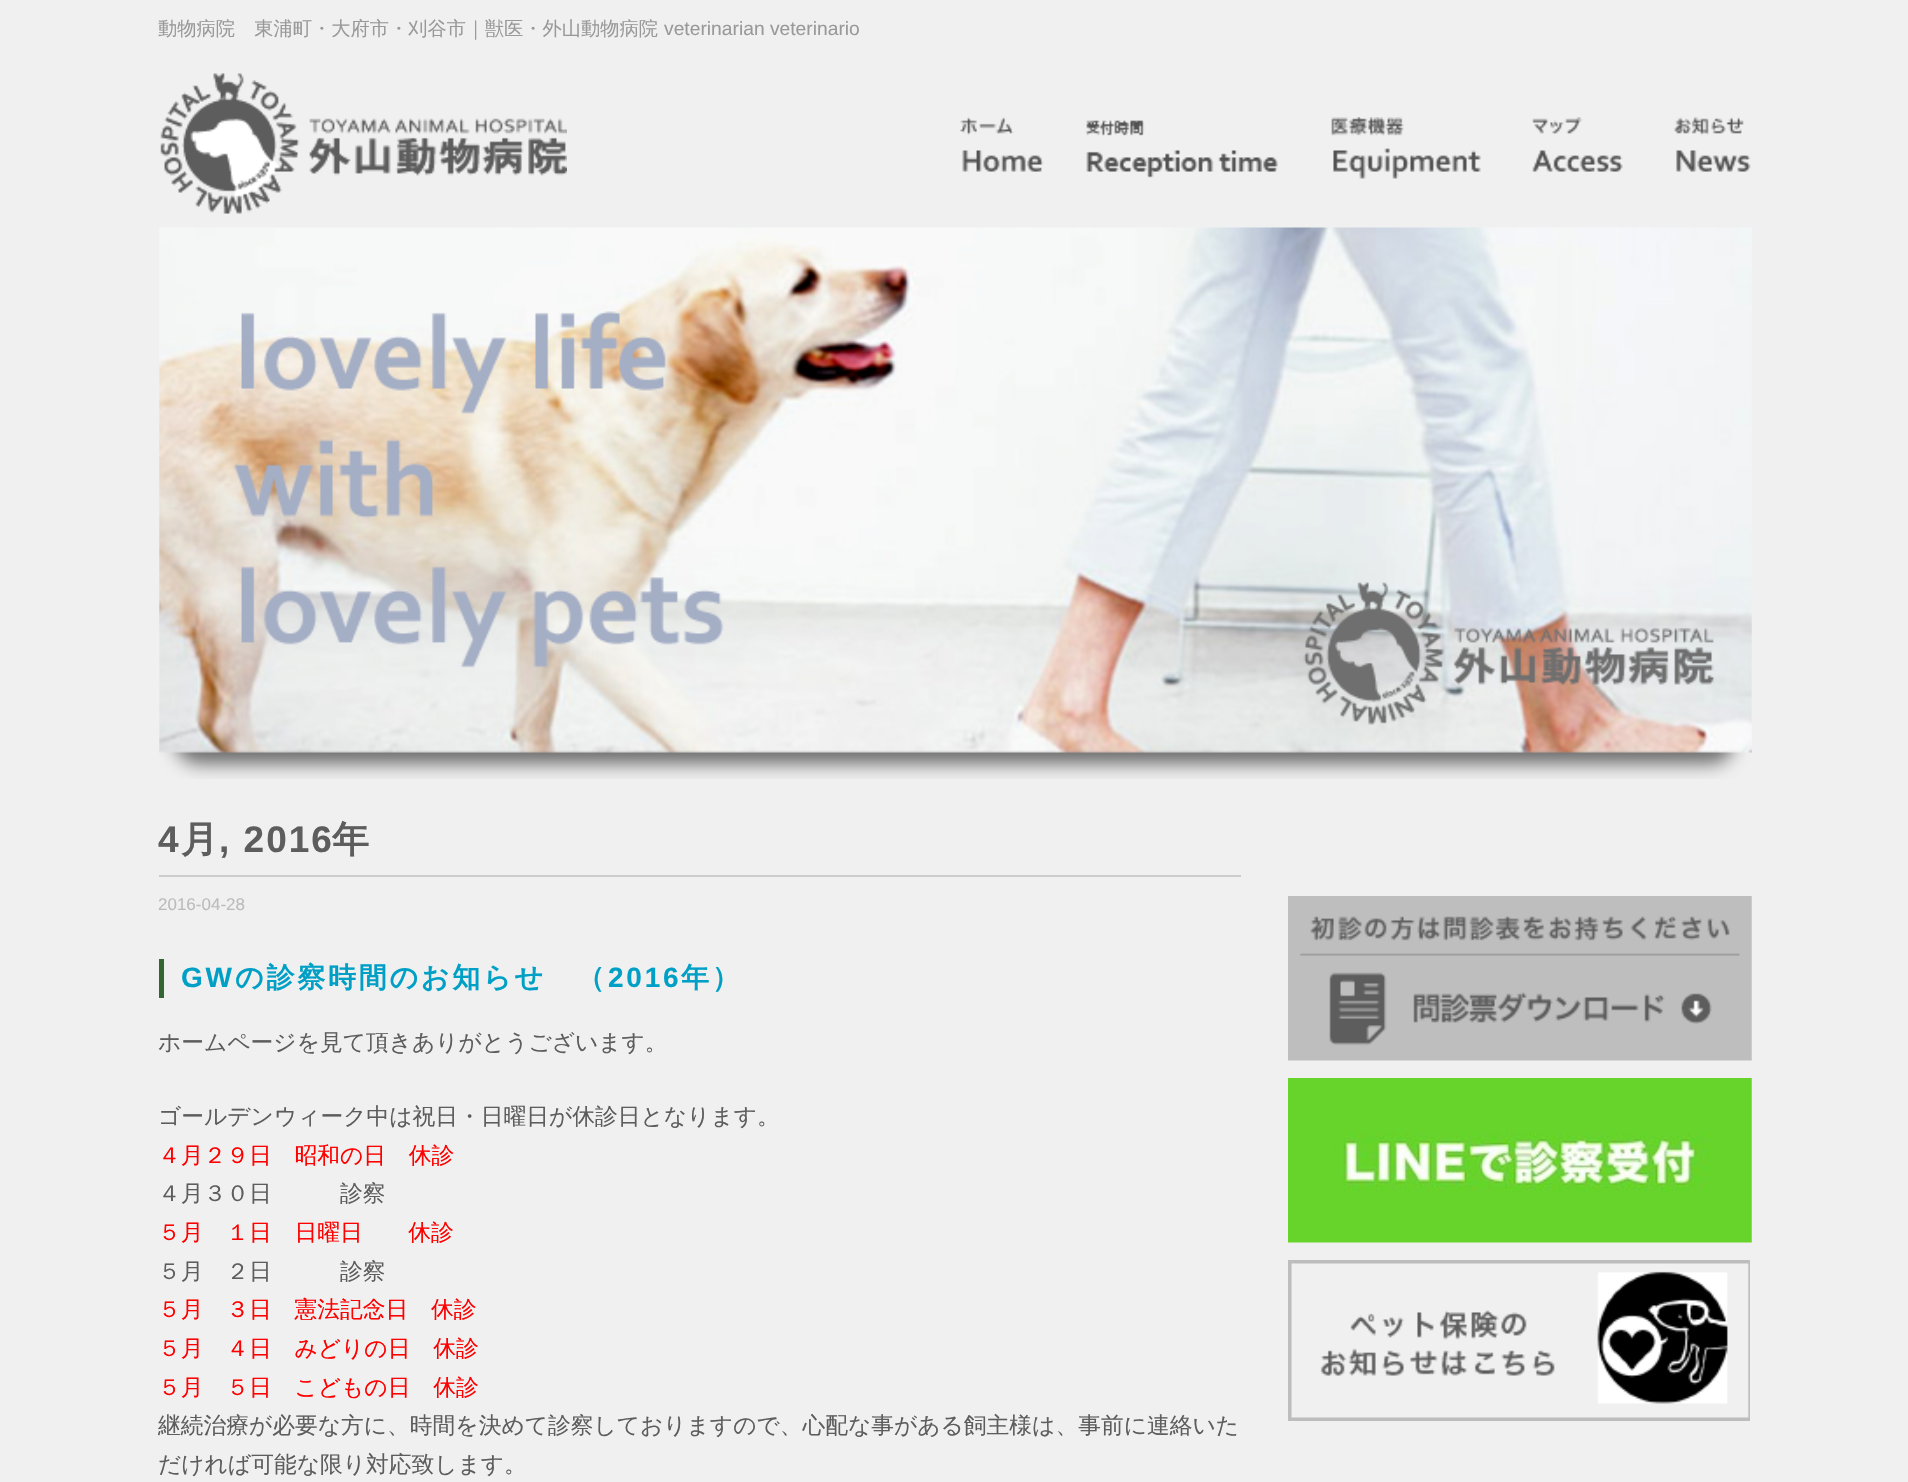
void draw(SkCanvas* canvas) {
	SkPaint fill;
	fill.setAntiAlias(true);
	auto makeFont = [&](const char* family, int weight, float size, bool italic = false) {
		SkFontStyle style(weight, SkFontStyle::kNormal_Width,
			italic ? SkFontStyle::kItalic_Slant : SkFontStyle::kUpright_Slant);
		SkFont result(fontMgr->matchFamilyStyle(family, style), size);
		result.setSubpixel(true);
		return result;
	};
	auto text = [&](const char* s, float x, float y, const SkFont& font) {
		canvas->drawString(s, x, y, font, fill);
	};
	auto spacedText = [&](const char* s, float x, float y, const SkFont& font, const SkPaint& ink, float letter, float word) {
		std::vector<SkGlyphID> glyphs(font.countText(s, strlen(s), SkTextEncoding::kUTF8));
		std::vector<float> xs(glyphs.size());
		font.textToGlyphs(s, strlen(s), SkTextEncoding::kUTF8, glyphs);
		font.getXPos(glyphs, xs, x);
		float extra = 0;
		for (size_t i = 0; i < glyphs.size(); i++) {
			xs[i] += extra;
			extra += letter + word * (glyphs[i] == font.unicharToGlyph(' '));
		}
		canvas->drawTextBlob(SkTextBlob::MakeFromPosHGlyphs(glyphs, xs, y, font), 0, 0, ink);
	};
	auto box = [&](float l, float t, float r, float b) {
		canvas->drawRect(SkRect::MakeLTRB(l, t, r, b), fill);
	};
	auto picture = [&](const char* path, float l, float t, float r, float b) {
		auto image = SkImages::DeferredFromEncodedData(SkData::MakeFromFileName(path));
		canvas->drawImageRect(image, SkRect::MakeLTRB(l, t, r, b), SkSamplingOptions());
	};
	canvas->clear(0xFFF0F0F0);
	picture("image0.png", 160, 73, 567, 214);
	picture("image1.png", 960, 117, 1044, 172);
	picture("image2.png", 1085, 120, 1278, 178);
	picture("image3.png", 1331, 117, 1481, 179);
	picture("image4.png", 1532, 117, 1623, 172);
	picture("image5.png", 1674, 117, 1751, 172);
	picture("image6.png", 159, 227, 1752, 779);
	fill.setColor(0xFFCCCCCC);
	box(159, 875, 1241, 877);
	fill.setColor(0xFF336633);
	box(159, 959, 164, 998);
	picture("image7.png", 1288, 896, 1752, 1061);
	picture("image8.png", 1288, 1078, 1752, 1243);
	picture("image9.png", 1288, 1260, 1750, 1421);
	auto font1 = makeFont("WenQuanYi Zen Hei", 500, 19.25f);
	fill.setColor(0xFF999999);
	text("動物病院　東浦町・大府市・刈谷市｜獣医・外山動物病院", 158, 35, font1);
	auto font2 = makeFont("Liberation Sans", 400, 19.25f);
	text("veterinarian veterinario", 664, 35, font2);
	auto font3 = makeFont("Liberation Sans", 700, 37);
	fill.setColor(0xFF5D5D5D);
	spacedText("4", 158, 852, font3, fill, 2, 0);
	auto font4 = makeFont("WenQuanYi Zen Hei", 700, 37);
	spacedText("月", 181, 852, font4, fill, 2, 0);
	spacedText(", 2016", 219, 852, font3, fill, 2, 0);
	spacedText("年", 332, 852, font4, fill, 2, 0);
	auto font5 = makeFont("Liberation Sans", 400, 17);
	fill.setColor(0xFFBBBBBB);
	text("2016-04-28", 158, 910, font5);
	auto font6 = makeFont("Liberation Sans", 700, 28);
	fill.setColor(0xFF00A0C6);
	spacedText("GW", 181, 987, font6, fill, 2.75f, 0);
	auto font7 = makeFont("WenQuanYi Zen Hei", 700, 28);
	spacedText("の診察時間のお知らせ　（", 235, 987, font7, fill, 2.75f, 0);
	spacedText("2016", 608, 987, font6, fill, 2.75f, 0);
	spacedText("年）", 681, 987, font7, fill, 2.75f, 0);
	auto font8 = makeFont("WenQuanYi Zen Hei", 500, 22.75f);
	fill.setColor(0xFF5D5D5D);
	text("ホームページを見て頂きありがとうございます。", 158, 1050, font8);
	text("ゴールデンウィーク中は祝日・日曜日が休診日となります。", 158, 1124, font8);
	fill.setColor(0xFFFF0000);
	text("４月２９日　昭和の日　休診", 158, 1163, font8);
	fill.setColor(0xFF5D5D5D);
	text("４月３０日　　　診察", 158, 1201, font8);
	fill.setColor(0xFFFF0000);
	text("５月　１日　日曜日　　休診", 158, 1240, font8);
	fill.setColor(0xFF5D5D5D);
	text("５月　２日　　　診察", 158, 1279, font8);
	fill.setColor(0xFFFF0000);
	text("５月　３日　憲法記念日　休診", 158, 1317, font8);
	text("５月　４日　みどりの日　休診", 158, 1356, font8);
	text("５月　５日　こどもの日　休診", 158, 1395, font8);
	fill.setColor(0xFF5D5D5D);
	text("継続治療が必要な方に、時間を決めて診察しておりますので、心配な事がある飼主様は、事前に連絡いた", 158, 1433, font8);
	text("だければ可能な限り対応致します。", 158, 1472, font8);
}
